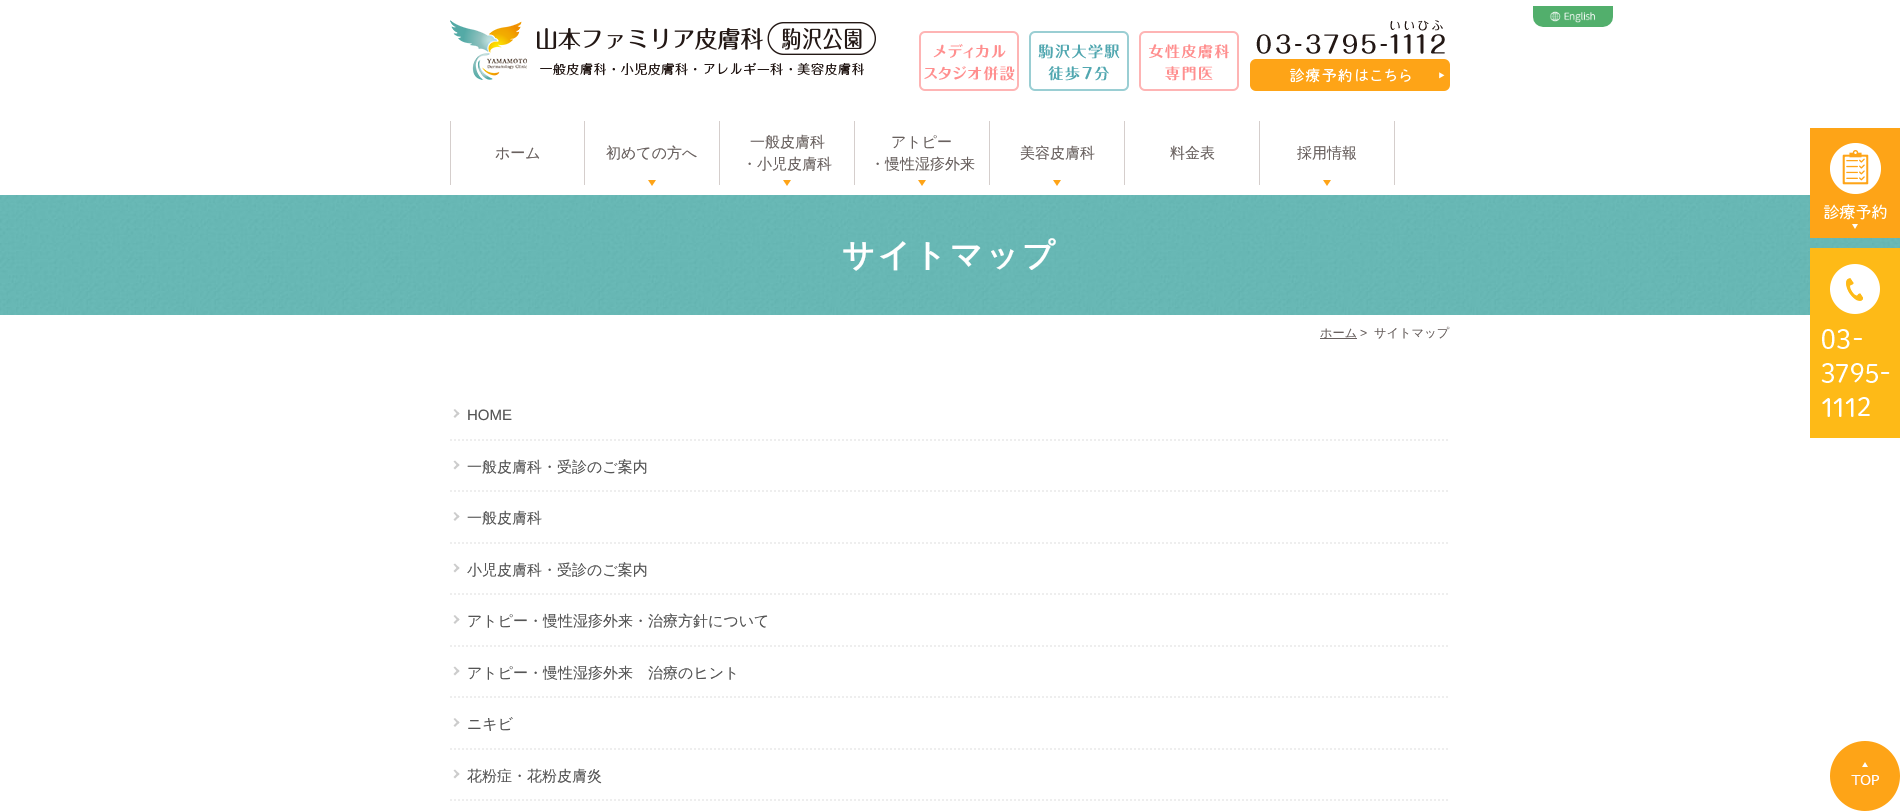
void draw(SkCanvas* canvas) {
	SkPaint fill;
	fill.setAntiAlias(true);
	auto makeFont = [&](const char* family, int weight, float size, bool italic = false) {
		SkFontStyle style(weight, SkFontStyle::kNormal_Width,
			italic ? SkFontStyle::kItalic_Slant : SkFontStyle::kUpright_Slant);
		SkFont result(fontMgr->matchFamilyStyle(family, style), size);
		result.setSubpixel(true);
		return result;
	};
	auto text = [&](const char* s, float x, float y, const SkFont& font) {
		canvas->drawString(s, x, y, font, fill);
	};
	auto spacedText = [&](const char* s, float x, float y, const SkFont& font, const SkPaint& ink, float letter, float word) {
		std::vector<SkGlyphID> glyphs(font.countText(s, strlen(s), SkTextEncoding::kUTF8));
		std::vector<float> xs(glyphs.size());
		font.textToGlyphs(s, strlen(s), SkTextEncoding::kUTF8, glyphs);
		font.getXPos(glyphs, xs, x);
		float extra = 0;
		for (size_t i = 0; i < glyphs.size(); i++) {
			xs[i] += extra;
			extra += letter + word * (glyphs[i] == font.unicharToGlyph(' '));
		}
		canvas->drawTextBlob(SkTextBlob::MakeFromPosHGlyphs(glyphs, xs, y, font), 0, 0, ink);
	};
	auto box = [&](float l, float t, float r, float b) {
		canvas->drawRect(SkRect::MakeLTRB(l, t, r, b), fill);
	};
	auto picture = [&](const char* path, float l, float t, float r, float b) {
		auto image = SkImages::DeferredFromEncodedData(SkData::MakeFromFileName(path));
		canvas->drawImageRect(image, SkRect::MakeLTRB(l, t, r, b), SkSamplingOptions());
	};
	canvas->clear(0xFFFFFFFF);
	picture("image0.png", 1533, 6, 1613, 27);
	picture("image1.png", 450, 20, 876, 80);
	picture("image2.png", 919, 31, 1239, 91);
	picture("image3.png", 1256, 20, 1445, 54);
	picture("image4.png", 1250, 59, 1450, 91);
	fill.setColor(0xFFD5CECC);
	box(584, 121, 585, 185);
	box(450, 121, 451, 185);
	box(719, 121, 720, 185);
	fill.setColor(0xFFFEA417);
	canvas->drawPath(SkPathBuilder().moveTo(648, 180).lineTo(656, 180).lineTo(652, 186).close().detach(), fill);
	fill.setColor(0xFFD5CECC);
	box(854, 121, 855, 185);
	fill.setColor(0xFFFEA417);
	canvas->drawPath(SkPathBuilder().moveTo(783, 180).lineTo(791, 180).lineTo(787, 186).close().detach(), fill);
	fill.setColor(0xFFD5CECC);
	box(989, 121, 990, 185);
	fill.setColor(0xFFFEA417);
	canvas->drawPath(SkPathBuilder().moveTo(918, 180).lineTo(926, 180).lineTo(922, 186).close().detach(), fill);
	fill.setColor(0xFFD5CECC);
	box(1124, 121, 1125, 185);
	fill.setColor(0xFFFEA417);
	canvas->drawPath(SkPathBuilder().moveTo(1053, 180).lineTo(1061, 180).lineTo(1057, 186).close().detach(), fill);
	fill.setColor(0xFFD5CECC);
	box(1259, 121, 1260, 185);
	box(1394, 121, 1395, 185);
	fill.setColor(0xFFFEA417);
	canvas->drawPath(SkPathBuilder().moveTo(1323, 180).lineTo(1331, 180).lineTo(1327, 186).close().detach(), fill);
	picture("image5.png", 0, 195, 1900, 315);
	fill.setColor(0xFF69615F);
	box(1320, 338, 1357, 339);
	fill.setStyle(SkPaint::kStroke_Style);
	fill.setStrokeWidth(2);
	fill.setColor(0xFFEEEEEE);
	fill.setPathEffect(SkDashPathEffect::Make({{2, 2}}, 0));
	canvas->drawPath(SkPathBuilder().moveTo(450, 440).lineTo(1450, 440).detach(), fill);
	fill.setPathEffect(nullptr);
	fill.setStyle(SkPaint::kFill_Style);
	fill.setColor(0xFFCCCCCC);
	canvas->drawPath(SkPathBuilder().moveTo(455, 409).lineTo(459.5f, 413.5f).lineTo(458, 415).lineTo(453.5f, 410).close().detach(), fill);
	canvas->drawPath(SkPathBuilder().moveTo(458, 412).lineTo(459.5f, 413.5f).lineTo(455, 418).lineTo(453.5f, 416.5f).close().detach(), fill);
	fill.setStyle(SkPaint::kStroke_Style);
	fill.setColor(0xFFEEEEEE);
	fill.setPathEffect(SkDashPathEffect::Make({{2, 2}}, 0));
	canvas->drawPath(SkPathBuilder().moveTo(450, 491).lineTo(1450, 491).detach(), fill);
	fill.setPathEffect(nullptr);
	fill.setStyle(SkPaint::kFill_Style);
	fill.setColor(0xFFCCCCCC);
	canvas->drawPath(SkPathBuilder().moveTo(455, 460.5f).lineTo(459.5f, 465).lineTo(458, 466.5f).lineTo(453.5f, 461.5f).close().detach(), fill);
	canvas->drawPath(SkPathBuilder().moveTo(458, 463.5f).lineTo(459.5f, 465).lineTo(455, 469.5f).lineTo(453.5f, 468).close().detach(), fill);
	fill.setStyle(SkPaint::kStroke_Style);
	fill.setColor(0xFFEEEEEE);
	fill.setPathEffect(SkDashPathEffect::Make({{2, 2}}, 0));
	canvas->drawPath(SkPathBuilder().moveTo(450, 543).lineTo(1450, 543).detach(), fill);
	fill.setPathEffect(nullptr);
	fill.setStyle(SkPaint::kFill_Style);
	fill.setColor(0xFFCCCCCC);
	canvas->drawPath(SkPathBuilder().moveTo(455, 512).lineTo(459.5f, 516.5f).lineTo(458, 518).lineTo(453.5f, 513).close().detach(), fill);
	canvas->drawPath(SkPathBuilder().moveTo(458, 515).lineTo(459.5f, 516.5f).lineTo(455, 521).lineTo(453.5f, 519.5f).close().detach(), fill);
	fill.setStyle(SkPaint::kStroke_Style);
	fill.setColor(0xFFEEEEEE);
	fill.setPathEffect(SkDashPathEffect::Make({{2, 2}}, 0));
	canvas->drawPath(SkPathBuilder().moveTo(450, 594).lineTo(1450, 594).detach(), fill);
	fill.setPathEffect(nullptr);
	fill.setStyle(SkPaint::kFill_Style);
	fill.setColor(0xFFCCCCCC);
	canvas->drawPath(SkPathBuilder().moveTo(455, 563.5f).lineTo(459.5f, 568).lineTo(458, 569.5f).lineTo(453.5f, 564.5f).close().detach(), fill);
	canvas->drawPath(SkPathBuilder().moveTo(458, 566.5f).lineTo(459.5f, 568).lineTo(455, 572.5f).lineTo(453.5f, 571).close().detach(), fill);
	fill.setStyle(SkPaint::kStroke_Style);
	fill.setColor(0xFFEEEEEE);
	fill.setPathEffect(SkDashPathEffect::Make({{2, 2}}, 0));
	canvas->drawPath(SkPathBuilder().moveTo(450, 646).lineTo(1450, 646).detach(), fill);
	fill.setPathEffect(nullptr);
	fill.setStyle(SkPaint::kFill_Style);
	fill.setColor(0xFFCCCCCC);
	canvas->drawPath(SkPathBuilder().moveTo(455, 615).lineTo(459.5f, 619.5f).lineTo(458, 621).lineTo(453.5f, 616).close().detach(), fill);
	canvas->drawPath(SkPathBuilder().moveTo(458, 618).lineTo(459.5f, 619.5f).lineTo(455, 624).lineTo(453.5f, 622.5f).close().detach(), fill);
	fill.setStyle(SkPaint::kStroke_Style);
	fill.setColor(0xFFEEEEEE);
	fill.setPathEffect(SkDashPathEffect::Make({{2, 2}}, 0));
	canvas->drawPath(SkPathBuilder().moveTo(450, 697).lineTo(1450, 697).detach(), fill);
	fill.setPathEffect(nullptr);
	fill.setStyle(SkPaint::kFill_Style);
	fill.setColor(0xFFCCCCCC);
	canvas->drawPath(SkPathBuilder().moveTo(455, 666.5f).lineTo(459.5f, 671).lineTo(458, 672.5f).lineTo(453.5f, 667.5f).close().detach(), fill);
	canvas->drawPath(SkPathBuilder().moveTo(458, 669.5f).lineTo(459.5f, 671).lineTo(455, 675.5f).lineTo(453.5f, 674).close().detach(), fill);
	fill.setStyle(SkPaint::kStroke_Style);
	fill.setColor(0xFFEEEEEE);
	fill.setPathEffect(SkDashPathEffect::Make({{2, 2}}, 0));
	canvas->drawPath(SkPathBuilder().moveTo(450, 749).lineTo(1450, 749).detach(), fill);
	fill.setPathEffect(nullptr);
	fill.setStyle(SkPaint::kFill_Style);
	fill.setColor(0xFFCCCCCC);
	canvas->drawPath(SkPathBuilder().moveTo(455, 718).lineTo(459.5f, 722.5f).lineTo(458, 724).lineTo(453.5f, 719).close().detach(), fill);
	canvas->drawPath(SkPathBuilder().moveTo(458, 721).lineTo(459.5f, 722.5f).lineTo(455, 727).lineTo(453.5f, 725.5f).close().detach(), fill);
	fill.setStyle(SkPaint::kStroke_Style);
	fill.setColor(0xFFEEEEEE);
	fill.setPathEffect(SkDashPathEffect::Make({{2, 2}}, 0));
	canvas->drawPath(SkPathBuilder().moveTo(450, 800).lineTo(1450, 800).detach(), fill);
	fill.setPathEffect(nullptr);
	fill.setStyle(SkPaint::kFill_Style);
	fill.setColor(0xFFCCCCCC);
	canvas->drawPath(SkPathBuilder().moveTo(455, 769.5f).lineTo(459.5f, 774).lineTo(458, 775.5f).lineTo(453.5f, 770.5f).close().detach(), fill);
	canvas->drawPath(SkPathBuilder().moveTo(458, 772.5f).lineTo(459.5f, 774).lineTo(455, 778.5f).lineTo(453.5f, 777).close().detach(), fill);
	picture("image6.png", 1810, 128, 1900, 238);
	picture("image7.png", 1810, 248, 1900, 438);
	picture("image8.png", 1830, 741, 1900, 811);
	auto font1 = makeFont("WenQuanYi Zen Hei", 500, 15);
	fill.setColor(0xFF69615F);
	text("ホーム", 495, 158, font1);
	text("初めての方へ", 606, 158, font1);
	text("一般皮膚科", 750, 147, font1);
	text("・小児皮膚科", 742, 169, font1);
	text("アトピー", 891, 147, font1);
	text("・慢性湿疹外来", 870, 169, font1);
	text("美容皮膚科", 1020, 158, font1);
	text("料金表", 1170, 158, font1);
	text("採用情報", 1297, 158, font1);
	auto font2 = makeFont("WenQuanYi Zen Hei", 700, 32);
	fill.setColor(0xFFFFFFFF);
	spacedText("サイトマップ", 842, 266, font2, fill, 3.25f, 0);
	auto font3 = makeFont("WenQuanYi Zen Hei", 500, 12.25f);
	fill.setColor(0xFF69615F);
	text("ホーム", 1320, 337, font3);
	auto font4 = makeFont("Liberation Sans", 400, 12.25f);
	text(">", 1360, 337, font4);
	text("サイトマップ", 1374, 337, font3);
	auto font5 = makeFont("Liberation Sans", 400, 15);
	fill.setColor(0xFF555555);
	text("HOME", 467, 420, font5);
	text("一般皮膚科・受診のご案内", 467, 472, font1);
	text("一般皮膚科", 467, 523, font1);
	text("小児皮膚科・受診のご案内", 467, 575, font1);
	text("アトピー・慢性湿疹外来・治療方針について", 467, 626, font1);
	text("アトピー・慢性湿疹外来　治療のヒント", 467, 678, font1);
	text("ニキビ", 467, 729, font1);
	text("花粉症・花粉皮膚炎", 467, 781, font1);
}
